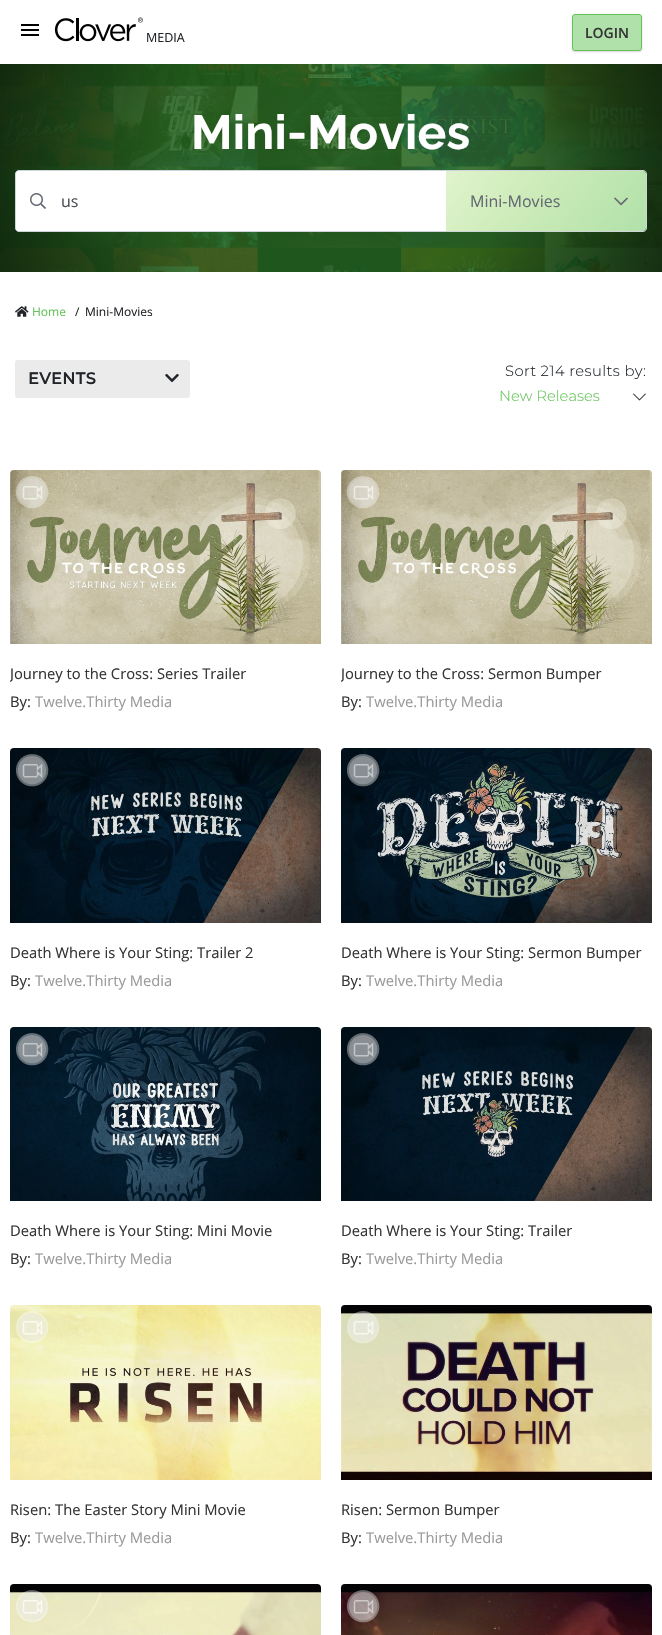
void draw(SkCanvas* canvas) {
	SkPaint fill;
	fill.setAntiAlias(true);
	auto makeFont = [&](const char* family, int weight, float size, bool italic = false) {
		SkFontStyle style(weight, SkFontStyle::kNormal_Width,
			italic ? SkFontStyle::kItalic_Slant : SkFontStyle::kUpright_Slant);
		SkFont result(fontMgr->matchFamilyStyle(family, style), size);
		result.setSubpixel(true);
		return result;
	};
	auto text = [&](const char* s, float x, float y, const SkFont& font) {
		canvas->drawString(s, x, y, font, fill);
	};
	auto spacedText = [&](const char* s, float x, float y, const SkFont& font, const SkPaint& ink, float letter, float word) {
		std::vector<SkGlyphID> glyphs(font.countText(s, strlen(s), SkTextEncoding::kUTF8));
		std::vector<float> xs(glyphs.size());
		font.textToGlyphs(s, strlen(s), SkTextEncoding::kUTF8, glyphs);
		font.getXPos(glyphs, xs, x);
		float extra = 0;
		for (size_t i = 0; i < glyphs.size(); i++) {
			xs[i] += extra;
			extra += letter + word * (glyphs[i] == font.unicharToGlyph(' '));
		}
		canvas->drawTextBlob(SkTextBlob::MakeFromPosHGlyphs(glyphs, xs, y, font), 0, 0, ink);
	};
	auto box = [&](float l, float t, float r, float b) {
		canvas->drawRect(SkRect::MakeLTRB(l, t, r, b), fill);
	};
	auto roundBox = [&](float l, float t, float r, float b, float radius) {
		canvas->drawRoundRect(SkRect::MakeLTRB(l, t, r, b), radius, radius, fill);
	};
	auto picture = [&](const char* path, float l, float t, float r, float b) {
		auto image = SkImages::DeferredFromEncodedData(SkData::MakeFromFileName(path));
		canvas->drawImageRect(image, SkRect::MakeLTRB(l, t, r, b), SkSamplingOptions());
	};
	canvas->clear(0xFFFFFFFF);
	picture("image0.png", 21, 24, 39, 36);
	picture("image1.png", 54, 17, 143, 42);
	canvas->save();
	canvas->clipPath(SkPathBuilder(SkPathFillType::kEvenOdd).moveTo(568, 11).lineTo(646, 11).lineTo(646, 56).lineTo(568, 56).close().moveTo(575, 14).lineTo(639, 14).cubicTo(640.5f, 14, 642, 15.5f, 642, 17).lineTo(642, 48).cubicTo(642, 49.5f, 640.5f, 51, 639, 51).lineTo(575, 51).cubicTo(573.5f, 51, 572, 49.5f, 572, 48).lineTo(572, 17).cubicTo(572, 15.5f, 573.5f, 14, 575, 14).close().detach(), true);
	fill.setColor(0x29000000);
	fill.setMaskFilter(SkMaskFilter::MakeBlur(kNormal_SkBlurStyle, 1));
	canvas->drawRoundRect(SkRect::MakeLTRB(572, 15, 642, 52), 3, 3, fill);
	fill.setMaskFilter(nullptr);
	canvas->restore();
	fill.setColor(0x8064C358);
	canvas->drawRoundRect(SkRect::MakeLTRB(572.5f, 14.5f, 641.5f, 50.5f), 2.5f, 2.5f, fill);
	fill.setStyle(SkPaint::kStroke_Style);
	fill.setStrokeWidth(1);
	fill.setColor(0xFF64C358);
	canvas->drawRoundRect(SkRect::MakeLTRB(572.5f, 14.5f, 641.5f, 50.5f), 2.5f, 2.5f, fill);
	picture("image2.png", 0, 64, 662, 272);
	picture("image5.png", 15, 306, 29, 317);
	fill.setStyle(SkPaint::kFill_Style);
	fill.setColor(0xFFEBEBEB);
	roundBox(15, 360, 190, 398, 3);
	picture("image6.png", 165, 373, 179, 383);
	picture("image7.png", 633, 393, 646, 401);
	picture("image9.png", 10, 470, 321, 644);
	picture("image8.png", 16, 476, 49, 509);
	picture("image11.png", 341, 470, 652, 644);
	picture("image10.png", 347, 476, 380, 509);
	picture("image13.png", 10, 748, 321, 923);
	picture("image12.png", 16, 754, 49, 787);
	picture("image15.png", 341, 748, 652, 923);
	picture("image14.png", 347, 754, 380, 787);
	picture("image17.png", 10, 1027, 321, 1201);
	picture("image16.png", 16, 1033, 49, 1066);
	picture("image19.png", 341, 1027, 652, 1201);
	picture("image18.png", 347, 1033, 380, 1066);
	picture("image21.png", 10, 1305, 321, 1480);
	picture("image20.png", 16, 1311, 49, 1344);
	picture("image23.png", 341, 1305, 652, 1480);
	picture("image22.png", 347, 1311, 380, 1344);
	picture("image24.png", 10, 1584, 321, 1635);
	picture("image25.png", 16, 1590, 49, 1623);
	picture("image26.png", 341, 1584, 652, 1635);
	picture("image27.png", 347, 1590, 380, 1623);
	auto font1 = makeFont("Open Sans", 400, 12.5f);
	fill.setColor(0xFF212529);
	text("MEDIA", 146, 42, font1);
	auto font2 = makeFont("Open Sans", 600, 14);
	fill.setColor(0xFF343434);
	text("LOGIN", 585, 38, font2);
	auto font3 = makeFont("Raleway", 700, 48);
	fill.setColor(0xFFFFFFFF);
	spacedText("Mini-Movies", 191, 149, font3, fill, 0.25f, 0);
	{
		const SkColor colors[] = {0x00000000, 0xFF000000};
		const float stops[] = {0.33f, 1};
		fill.setShader(SkGradientShader::MakeRadial({331, 168}, 520, colors, stops, 2, SkTileMode::kClamp));
		fill.setAlpha(255);
	}
	box(0, 64, 662, 272);
	fill.setShader(nullptr);
	fill.setColor(0xFFFFFFFF);
	canvas->drawPath(SkPathBuilder().moveTo(19, 170.5f).lineTo(446.5f, 170.5f).lineTo(446.5f, 231.5f).lineTo(19, 231.5f).cubicTo(17, 231.5f, 15.5f, 230, 15.5f, 228).lineTo(15.5f, 174).cubicTo(15.5f, 172, 17, 170.5f, 19, 170.5f).close().detach(), fill);
	fill.setStyle(SkPaint::kStroke_Style);
	fill.setColor(0xFFCED4DA);
	canvas->drawPath(SkPathBuilder().moveTo(19, 170.5f).lineTo(446.5f, 170.5f).lineTo(446.5f, 231.5f).lineTo(19, 231.5f).cubicTo(17, 231.5f, 15.5f, 230, 15.5f, 228).lineTo(15.5f, 174).cubicTo(15.5f, 172, 17, 170.5f, 19, 170.5f).close().detach(), fill);
	picture("image3.png", 30, 193, 46, 209);
	auto font4 = makeFont("Open Sans", 400, 16);
	fill.setStyle(SkPaint::kFill_Style);
	fill.setColor(0xFF495057);
	text("us", 61, 207, font4);
	fill.setColor(0xFFFFFFFF);
	canvas->drawPath(SkPathBuilder().moveTo(446, 171).lineTo(643, 171).cubicTo(644.5f, 171, 646, 172.5f, 646, 174).lineTo(646, 228).cubicTo(646, 229.5f, 644.5f, 231, 643, 231).lineTo(446, 231).close().detach(), fill);
	{
		const SkColor colors[] = {0x3364C308, 0x8064C358};
		const float stops[] = {0, 1};
		const SkPoint ends[] = {{468, 142}, {624, 260}};
		fill.setShader(SkGradientShader::MakeLinear(ends, colors, stops, 2, SkTileMode::kClamp));
		fill.setAlpha(255);
	}
	canvas->drawPath(SkPathBuilder().moveTo(446, 171).lineTo(643, 171).cubicTo(644.5f, 171, 646, 172.5f, 646, 174).lineTo(646, 228).cubicTo(646, 229.5f, 644.5f, 231, 643, 231).lineTo(446, 231).close().detach(), fill);
	fill.setShader(nullptr);
	fill.setColor(0xFFCED4DA);
	canvas->drawPath(SkPathBuilder(SkPathFillType::kEvenOdd).moveTo(446, 170).lineTo(643, 170).cubicTo(645, 170, 647, 172, 647, 174).lineTo(647, 228).cubicTo(647, 230, 645, 232, 643, 232).lineTo(446, 232).close().moveTo(446, 171).lineTo(643, 171).cubicTo(645, 171, 646, 172, 646, 174).lineTo(646, 228).cubicTo(646, 230, 645, 231, 643, 231).lineTo(446, 231).close().detach(), fill);
	fill.setColor(0xFF656874);
	text("Mini-Movies", 470, 207, font4);
	picture("image4.png", 614, 197, 628, 206);
	auto font5 = makeFont("Open Sans", 400, 12);
	fill.setColor(0xFF64C358);
	text("Home", 32, 316, font5);
	fill.setColor(0xFF212529);
	text("/", 75, 316, font5);
	text("Mini-Movies", 85, 316, font5);
	auto font6 = makeFont("Montserrat", 700, 16);
	spacedText("EVENTS", 28, 384, font6, fill, 0.5f, 0);
	auto font7 = makeFont("Montserrat", 300, 14.75f);
	spacedText("Sort 214 results by:", 505, 376, font7, fill, 0.4f, 0);
	fill.setColor(0xFF64C358);
	text("New Releases", 499, 401, font7);
	canvas->save();
	canvas->clipPath(SkPathBuilder().moveTo(14, 470).lineTo(317, 470).cubicTo(319, 470, 321, 472, 321, 474).lineTo(321, 724).cubicTo(321, 726, 319, 728, 317, 728).lineTo(14, 728).cubicTo(12, 728, 10, 726, 10, 724).lineTo(10, 474).cubicTo(10, 472, 12, 470, 14, 470).close().detach(), true);
	auto font8 = makeFont("Open Sans", 400, 14.75f);
	fill.setColor(0xFF343434);
	text("Journey to the Cross: Series Trailer", 10, 679, font8);
	canvas->restore();
	text("By:", 10, 707, font8);
	fill.setColor(0xFF9A9A9A);
	text("Twelve.Thirty Media", 35, 707, font8);
	canvas->save();
	canvas->clipPath(SkPathBuilder().moveTo(345, 470).lineTo(648, 470).cubicTo(650, 470, 652, 472, 652, 474).lineTo(652, 724).cubicTo(652, 726, 650, 728, 648, 728).lineTo(345, 728).cubicTo(343, 728, 341, 726, 341, 724).lineTo(341, 474).cubicTo(341, 472, 343, 470, 345, 470).close().detach(), true);
	fill.setColor(0xFF343434);
	text("Journey to the Cross: Sermon Bumper", 341, 679, font8);
	canvas->restore();
	text("By:", 341, 707, font8);
	fill.setColor(0xFF9A9A9A);
	text("Twelve.Thirty Media", 366, 707, font8);
	fill.setColor(0xFF343434);
	text("Death Where is Your Sting: Trailer 2", 10, 958, font8);
	text("By:", 10, 986, font8);
	fill.setColor(0xFF9A9A9A);
	text("Twelve.Thirty Media", 35, 986, font8);
	fill.setColor(0xFF343434);
	text("Death Where is Your Sting: Sermon Bumper", 341, 958, font8);
	text("By:", 341, 986, font8);
	fill.setColor(0xFF9A9A9A);
	text("Twelve.Thirty Media", 366, 986, font8);
	fill.setColor(0xFF343434);
	text("Death Where is Your Sting: Mini Movie", 10, 1236, font8);
	text("By:", 10, 1264, font8);
	fill.setColor(0xFF9A9A9A);
	text("Twelve.Thirty Media", 35, 1264, font8);
	fill.setColor(0xFF343434);
	text("Death Where is Your Sting: Trailer", 341, 1236, font8);
	text("By:", 341, 1264, font8);
	fill.setColor(0xFF9A9A9A);
	text("Twelve.Thirty Media", 366, 1264, font8);
	fill.setColor(0xFF343434);
	text("Risen: The Easter Story Mini Movie", 10, 1515, font8);
	text("By:", 10, 1543, font8);
	fill.setColor(0xFF9A9A9A);
	text("Twelve.Thirty Media", 35, 1543, font8);
	fill.setColor(0xFF343434);
	text("Risen: Sermon Bumper", 341, 1515, font8);
	text("By:", 341, 1543, font8);
	fill.setColor(0xFF9A9A9A);
	text("Twelve.Thirty Media", 366, 1543, font8);
}
